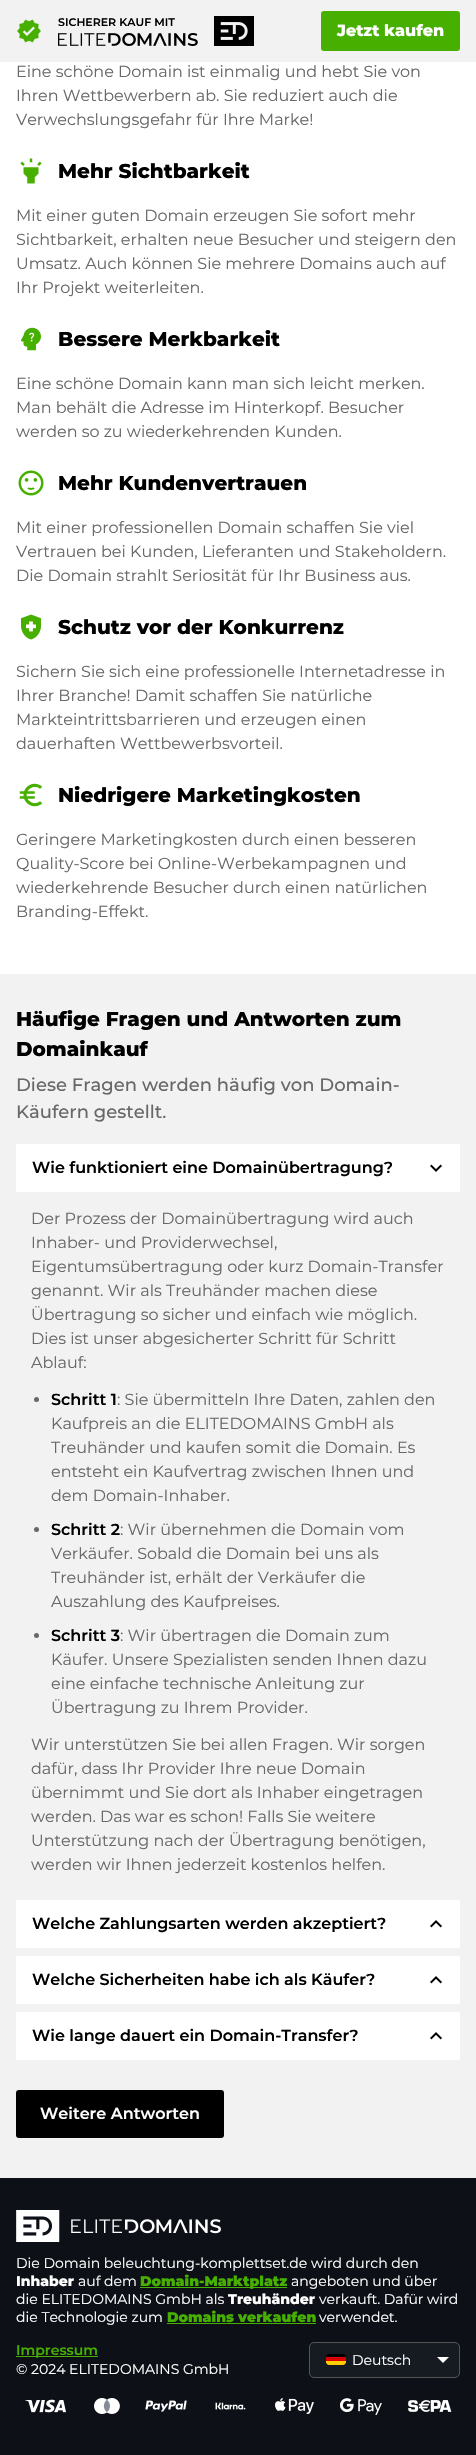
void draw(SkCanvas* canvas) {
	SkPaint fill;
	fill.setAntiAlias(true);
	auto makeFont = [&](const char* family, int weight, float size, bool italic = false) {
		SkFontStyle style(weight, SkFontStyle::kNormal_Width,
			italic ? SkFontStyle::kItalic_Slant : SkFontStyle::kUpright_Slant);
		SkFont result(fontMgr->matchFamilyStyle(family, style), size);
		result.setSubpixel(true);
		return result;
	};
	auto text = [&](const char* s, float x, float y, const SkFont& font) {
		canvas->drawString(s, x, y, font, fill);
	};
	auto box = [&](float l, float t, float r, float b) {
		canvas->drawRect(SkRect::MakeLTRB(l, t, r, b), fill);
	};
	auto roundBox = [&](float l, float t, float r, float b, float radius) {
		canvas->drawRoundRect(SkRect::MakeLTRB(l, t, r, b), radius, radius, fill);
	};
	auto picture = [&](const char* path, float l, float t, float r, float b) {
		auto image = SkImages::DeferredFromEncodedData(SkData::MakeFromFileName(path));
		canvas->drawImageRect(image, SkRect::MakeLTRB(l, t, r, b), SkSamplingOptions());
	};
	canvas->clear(0xFFFFFFFF);
	fill.setColor(0xFFF2F2F2);
	box(0, 0, 476, 62);
	picture("image0.png", 17, 19, 41, 43);
	picture("image1.png", 58, 33, 198, 46);
	picture("image2.png", 214, 16, 254, 46);
	fill.setColor(0xFF46AF00);
	roundBox(321, 11, 460, 51, 3);
	picture("image3.png", 20, 158, 42, 184);
	picture("image4.png", 21, 327, 41, 351);
	picture("image5.png", 18, 470, 44, 496);
	picture("image6.png", 21, 614, 41, 640);
	picture("image7.png", 19, 783, 43, 807);
	fill.setColor(0xFFF2F2F2);
	box(0, 974, 476, 2178);
	fill.setColor(0xFFFFFFFF);
	box(16, 1144, 460, 1192);
	picture("image8.png", 430, 1164, 442, 1172);
	fill.setColor(0xFF686868);
	canvas->drawCircle(36.5f, 1399.5f, 2.5f, fill);
	canvas->drawCircle(36.5f, 1529.5f, 2.5f, fill);
	canvas->drawCircle(36.5f, 1635.5f, 2.5f, fill);
	fill.setColor(0xFFFFFFFF);
	box(16, 1900, 460, 1948);
	picture("image9.png", 430, 1920, 442, 1928);
	box(16, 1956, 460, 2004);
	picture("image9.png", 430, 1976, 442, 1984);
	box(16, 2012, 460, 2060);
	picture("image9.png", 430, 2032, 442, 2040);
	fill.setColor(0xFF000000);
	roundBox(16, 2090, 224, 2138, 3);
	fill.setColor(0xFF0D1117);
	box(0, 2178, 476, 2455);
	picture("image10.png", 16, 2210, 221, 2242);
	fill.setColor(0xFF46AF00);
	box(140, 2287, 287, 2288);
	box(167, 2323, 316, 2324);
	box(16, 2356, 98, 2357);
	fill.setColor(0xFF161B22);
	canvas->drawRoundRect(SkRect::MakeLTRB(309.5f, 2342.5f, 459.5f, 2377.5f), 4.5f, 4.5f, fill);
	fill.setStyle(SkPaint::kStroke_Style);
	fill.setStrokeWidth(1);
	fill.setColor(0xFF545454);
	canvas->drawRoundRect(SkRect::MakeLTRB(309.5f, 2342.5f, 459.5f, 2377.5f), 4.5f, 4.5f, fill);
	fill.setStyle(SkPaint::kFill_Style);
	fill.setColor(0xFF000000);
	canvas->drawPath(SkPathBuilder().moveTo(329, 2354).lineTo(343, 2354).cubicTo(344.5f, 2354, 346, 2355.5f, 346, 2357).lineTo(326, 2357).cubicTo(326, 2355.5f, 327.5f, 2354, 329, 2354).close().detach(), fill);
	fill.setColor(0xFFDD0000);
	box(326, 2357, 346, 2361);
	fill.setColor(0xFFFFCE00);
	canvas->drawPath(SkPathBuilder().moveTo(326, 2361).lineTo(346, 2361).lineTo(346, 2362).cubicTo(346, 2363.5f, 344.5f, 2365, 343, 2365).lineTo(329, 2365).cubicTo(327.5f, 2365, 326, 2363.5f, 326, 2362).close().detach(), fill);
	fill.setColor(0xFFFFFFFF);
	canvas->drawPath(SkPathBuilder().moveTo(437, 2357).lineTo(449, 2357).lineTo(443, 2363).close().detach(), fill);
	picture("image11.png", 25, 2399, 66, 2413);
	picture("image12.png", 94, 2398, 120, 2414);
	picture("image13.png", 145, 2400, 187, 2412);
	picture("image14.png", 215, 2402, 246, 2410);
	picture("image15.png", 275, 2398, 314, 2414);
	picture("image16.png", 340, 2398, 382, 2415);
	picture("image17.png", 408, 2400, 452, 2412);
	auto font1 = makeFont("Montserrat", 600, 11);
	fill.setColor(0xFF000000);
	text("SICHERER KAUF MIT", 58, 26, font1);
	auto font2 = makeFont("Montserrat", 800, 16);
	fill.setColor(0xFFFFFFFF);
	text("Jetzt kaufen", 337, 36, font2);
	auto font3 = makeFont("Montserrat", 400, 16);
	fill.setColor(0xFF686868);
	text("Eine schöne Domain ist einmalig und hebt Sie von", 16, 77, font3);
	text("Ihren Wettbewerbern ab. Sie reduziert auch die", 16, 101, font3);
	text("Verwechslungsgefahr für Ihre Marke!", 16, 125, font3);
	auto font4 = makeFont("Montserrat", 800, 20);
	fill.setColor(0xFF000000);
	text("Mehr Sichtbarkeit", 58, 178, font4);
	fill.setColor(0xFF686868);
	text("Mit einer guten Domain erzeugen Sie sofort mehr", 16, 221, font3);
	text("Sichtbarkeit, erhalten neue Besucher und steigern den", 16, 245, font3);
	text("Umsatz. Auch können Sie mehrere Domains auch auf", 16, 269, font3);
	text("Ihr Projekt weiterleiten.", 16, 293, font3);
	fill.setColor(0xFF000000);
	text("Bessere Merkbarkeit", 58, 346, font4);
	fill.setColor(0xFF686868);
	text("Eine schöne Domain kann man sich leicht merken.", 16, 389, font3);
	text("Man behält die Adresse im Hinterkopf. Besucher", 16, 413, font3);
	text("werden so zu wiederkehrenden Kunden.", 16, 437, font3);
	fill.setColor(0xFF000000);
	text("Mehr Kundenvertrauen", 58, 490, font4);
	fill.setColor(0xFF686868);
	text("Mit einer professionellen Domain schaffen Sie viel", 16, 533, font3);
	text("Vertrauen bei Kunden, Lieferanten und Stakeholdern.", 16, 557, font3);
	text("Die Domain strahlt Seriosität für Ihr Business aus.", 16, 581, font3);
	fill.setColor(0xFF000000);
	text("Schutz vor der Konkurrenz", 58, 634, font4);
	fill.setColor(0xFF686868);
	text("Sichern Sie sich eine professionelle Internetadresse in", 16, 677, font3);
	text("Ihrer Branche! Damit schaffen Sie natürliche", 16, 701, font3);
	text("Markteintrittsbarrieren und erzeugen einen", 16, 725, font3);
	text("dauerhaften Wettbewerbsvorteil.", 16, 749, font3);
	fill.setColor(0xFF000000);
	text("Niedrigere Marketingkosten", 58, 802, font4);
	fill.setColor(0xFF686868);
	text("Geringere Marketingkosten durch einen besseren", 16, 845, font3);
	text("Quality-Score bei Online-Werbekampagnen und", 16, 869, font3);
	text("wiederkehrende Besucher durch einen natürlichen", 16, 893, font3);
	text("Branding-Effekt.", 16, 917, font3);
	fill.setColor(0xFF000000);
	text("Häufige Fragen und Antworten zum", 16, 1026, font4);
	text("Domainkauf", 16, 1056, font4);
	auto font5 = makeFont("Montserrat", 500, 18);
	fill.setColor(0xFF686868);
	text("Diese Fragen werden häufig von Domain-", 16, 1091, font5);
	text("Käufern gestellt.", 16, 1118, font5);
	auto font6 = makeFont("Montserrat", 600, 16);
	fill.setColor(0xFF000000);
	text("Wie funktioniert eine Domainübertragung?", 32, 1173, font6);
	fill.setColor(0xFF686868);
	text("Der Prozess der Domainübertragung wird auch", 31, 1224, font3);
	text("Inhaber- und Providerwechsel,", 31, 1248, font3);
	text("Eigentumsübertragung oder kurz Domain-Transfer", 31, 1272, font3);
	text("genannt. Wir als Treuhänder machen diese", 31, 1296, font3);
	text("Übertragung so sicher und einfach wie möglich.", 31, 1320, font3);
	text("Dies ist unser abgesicherter Schritt für Schritt", 31, 1344, font3);
	text("Ablauf:", 31, 1368, font3);
	fill.setColor(0xFF000000);
	text("Schritt 1", 51, 1405, font6);
	fill.setColor(0xFF686868);
	text(": Sie übermitteln Ihre Daten, zahlen den", 117, 1405, font3);
	text("Kaufpreis an die ELITEDOMAINS GmbH als", 51, 1429, font3);
	text("Treuhänder und kaufen somit die Domain. Es", 51, 1453, font3);
	text("entsteht ein Kaufvertrag zwischen Ihnen und", 51, 1477, font3);
	text("dem Domain-Inhaber.", 51, 1501, font3);
	fill.setColor(0xFF000000);
	text("Schritt 2", 51, 1535, font6);
	fill.setColor(0xFF686868);
	text(": Wir übernehmen die Domain vom", 120, 1535, font3);
	text("Verkäufer. Sobald die Domain bei uns als", 51, 1559, font3);
	text("Treuhänder ist, erhält der Verkäufer die", 51, 1583, font3);
	text("Auszahlung des Kaufpreises.", 51, 1607, font3);
	fill.setColor(0xFF000000);
	text("Schritt 3", 51, 1641, font6);
	fill.setColor(0xFF686868);
	text(": Wir übertragen die Domain zum", 120, 1641, font3);
	text("Käufer. Unsere Spezialisten senden Ihnen dazu", 51, 1665, font3);
	text("eine einfache technische Anleitung zur", 51, 1689, font3);
	text("Übertragung zu Ihrem Provider.", 51, 1713, font3);
	text("Wir unterstützen Sie bei allen Fragen. Wir sorgen", 31, 1750, font3);
	text("dafür, dass Ihr Provider Ihre neue Domain", 31, 1774, font3);
	text("übernimmt und Sie dort als Inhaber eingetragen", 31, 1798, font3);
	text("werden. Das war es schon! Falls Sie weitere", 31, 1822, font3);
	text("Unterstützung nach der Übertragung benötigen,", 31, 1846, font3);
	text("werden wir Ihnen jederzeit kostenlos helfen.", 31, 1870, font3);
	fill.setColor(0xFF000000);
	text("Welche Zahlungsarten werden akzeptiert?", 32, 1929, font6);
	text("Welche Sicherheiten habe ich als Käufer?", 32, 1985, font6);
	text("Wie lange dauert ein Domain-Transfer?", 32, 2041, font6);
	fill.setColor(0xFFFFFFFF);
	text("Weitere Antworten", 40, 2119, font6);
	auto font7 = makeFont("Montserrat", 400, 14);
	text("Die Domain beleuchtung-komplettset.de wird durch den", 16, 2268, font7);
	auto font8 = makeFont("Montserrat", 800, 14);
	text("Inhaber", 16, 2286, font8);
	text("auf dem", 78, 2286, font7);
	auto font9 = makeFont("Montserrat", 900, 14);
	fill.setColor(0xFF46AF00);
	text("Domain-Marktplatz", 140, 2286, font9);
	fill.setColor(0xFFFFFFFF);
	text("angeboten und über", 291, 2286, font7);
	text("die ELITEDOMAINS GmbH als", 16, 2304, font7);
	text("Treuhänder", 228, 2304, font8);
	text("verkauft. Dafür wird", 319, 2304, font7);
	text("die Technologie zum", 16, 2322, font7);
	fill.setColor(0xFF46AF00);
	text("Domains verkaufen", 167, 2322, font9);
	fill.setColor(0xFFFFFFFF);
	text("verwendet.", 319, 2322, font7);
	auto font10 = makeFont("Montserrat", 600, 14);
	fill.setColor(0xFF46AF00);
	text("Impressum", 16, 2355, font10);
	fill.setColor(0xFFFFFFFF);
	text("© 2024 ELITEDOMAINS GmbH", 16, 2374, font7);
	text("Deutsch", 352, 2365, font7);
}
